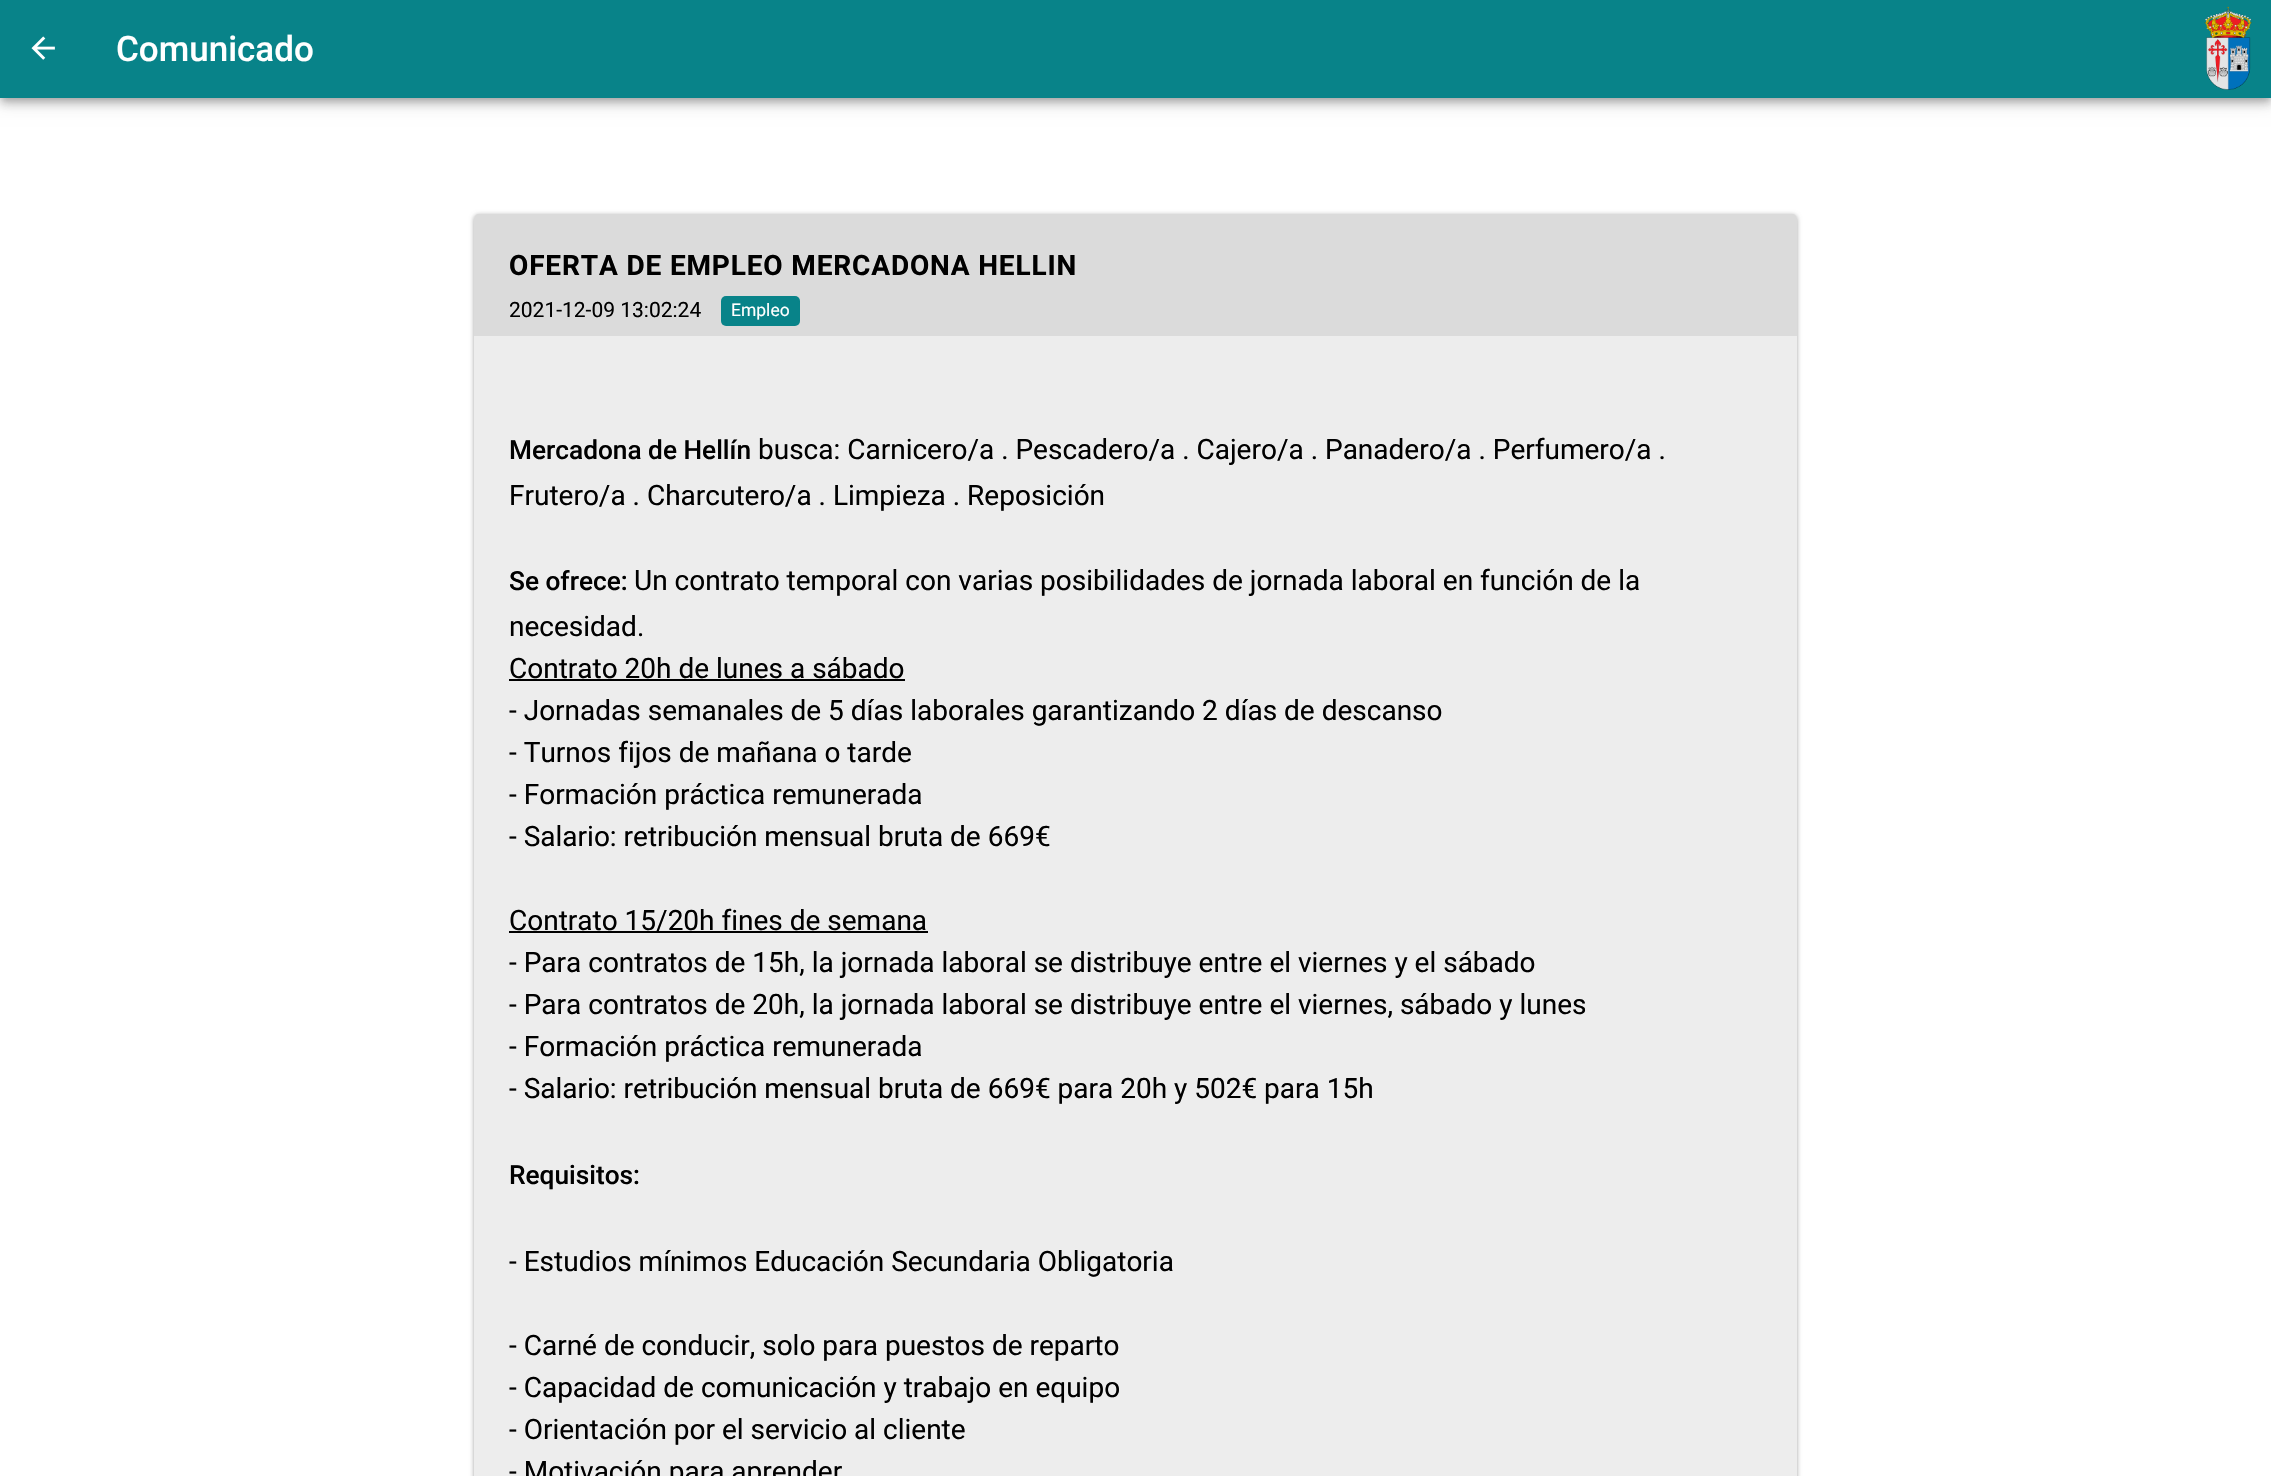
void draw(SkCanvas* canvas) {
	SkPaint fill;
	fill.setAntiAlias(true);
	auto makeFont = [&](const char* family, int weight, float size, bool italic = false) {
		SkFontStyle style(weight, SkFontStyle::kNormal_Width,
			italic ? SkFontStyle::kItalic_Slant : SkFontStyle::kUpright_Slant);
		SkFont result(fontMgr->matchFamilyStyle(family, style), size);
		result.setSubpixel(true);
		return result;
	};
	auto text = [&](const char* s, float x, float y, const SkFont& font) {
		canvas->drawString(s, x, y, font, fill);
	};
	auto spacedText = [&](const char* s, float x, float y, const SkFont& font, const SkPaint& ink, float letter, float word) {
		std::vector<SkGlyphID> glyphs(font.countText(s, strlen(s), SkTextEncoding::kUTF8));
		std::vector<float> xs(glyphs.size());
		font.textToGlyphs(s, strlen(s), SkTextEncoding::kUTF8, glyphs);
		font.getXPos(glyphs, xs, x);
		float extra = 0;
		for (size_t i = 0; i < glyphs.size(); i++) {
			xs[i] += extra;
			extra += letter + word * (glyphs[i] == font.unicharToGlyph(' '));
		}
		canvas->drawTextBlob(SkTextBlob::MakeFromPosHGlyphs(glyphs, xs, y, font), 0, 0, ink);
	};
	auto box = [&](float l, float t, float r, float b) {
		canvas->drawRect(SkRect::MakeLTRB(l, t, r, b), fill);
	};
	auto roundBox = [&](float l, float t, float r, float b, float radius) {
		canvas->drawRoundRect(SkRect::MakeLTRB(l, t, r, b), radius, radius, fill);
	};
	auto picture = [&](const char* path, float l, float t, float r, float b) {
		auto image = SkImages::DeferredFromEncodedData(SkData::MakeFromFileName(path));
		canvas->drawImageRect(image, SkRect::MakeLTRB(l, t, r, b), SkSamplingOptions());
	};
	canvas->clear(0xFFFFFFFF);
	fill.setColor(0x1F000000);
	fill.setMaskFilter(SkMaskFilter::MakeBlur(kNormal_SkBlurStyle, 9));
	canvas->drawRect(SkRect::MakeLTRB(0, 2, 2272, 100), fill);
	fill.setMaskFilter(nullptr);
	fill.setColor(0x24000000);
	fill.setMaskFilter(SkMaskFilter::MakeBlur(kNormal_SkBlurStyle, 4.5f));
	canvas->drawRect(SkRect::MakeLTRB(0, 7, 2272, 105), fill);
	fill.setMaskFilter(nullptr);
	fill.setColor(0x33000000);
	fill.setMaskFilter(SkMaskFilter::MakeBlur(kNormal_SkBlurStyle, 3.5f));
	canvas->drawRect(SkRect::MakeLTRB(2, 5, 2270, 100), fill);
	fill.setMaskFilter(nullptr);
	fill.setColor(0xFF088389);
	box(0, 0, 2271, 98);
	picture("image0.png", 31, 36, 55, 60);
	picture("image1.png", 2204, 6, 2252, 90);
	fill.setColor(0x3D000000);
	fill.setMaskFilter(SkMaskFilter::MakeBlur(kNormal_SkBlurStyle, 2));
	canvas->drawRoundRect(SkRect::MakeLTRB(474, 215, 1797, 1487), 5, 5, fill);
	fill.setMaskFilter(nullptr);
	fill.setColor(0x1F000000);
	fill.setMaskFilter(SkMaskFilter::MakeBlur(kNormal_SkBlurStyle, 2.5f));
	canvas->drawRoundRect(SkRect::MakeLTRB(474, 215, 1797, 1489), 5, 5, fill);
	fill.setMaskFilter(nullptr);
	fill.setColor(0xFFEDEDED);
	canvas->drawPath(SkPathBuilder().moveTo(479, 214).lineTo(1792, 214).cubicTo(1795, 214, 1797, 216, 1797, 219).lineTo(1797, 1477).lineTo(474, 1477).lineTo(474, 219).cubicTo(474, 216, 476, 214, 479, 214).close().detach(), fill);
	fill.setColor(0xFFDBDBDB);
	canvas->drawPath(SkPathBuilder().moveTo(479, 214).lineTo(1792, 214).cubicTo(1795, 214, 1797, 216, 1797, 219).lineTo(1797, 336).lineTo(474, 336).lineTo(474, 219).cubicTo(474, 216, 476, 214, 479, 214).close().detach(), fill);
	fill.setColor(0xFF088389);
	roundBox(721, 296, 800, 326, 5);
	fill.setColor(0xFF000000);
	box(509, 679, 905, 681);
	box(509, 931, 928, 933);
	auto font1 = makeFont("Roboto", 500, 35);
	fill.setColor(0xFFFFFFFF);
	text("Comunicado", 116, 61, font1);
	auto font2 = makeFont("Roboto", 700, 28);
	fill.setColor(0xFF000000);
	spacedText("OFERTA DE EMPLEO MERCADONA HELLIN", 509, 275, font2, fill, 0.85f, 0);
	auto font3 = makeFont("Roboto", 400, 21);
	text("2021-12-09 13:02:24", 509, 317, font3);
	auto font4 = makeFont("Roboto", 400, 17.5f);
	fill.setColor(0xFFFFFFFF);
	text("Empleo", 731, 316, font4);
	auto font5 = makeFont("Roboto", 500, 26.25f);
	fill.setColor(0xFF000000);
	text("Mercadona de Hellín", 509, 459, font5);
	auto font6 = makeFont("Roboto", 400, 28);
	text("busca: Carnicero/a . Pescadero/a . Cajero/a . Panadero/a . Perfumero/a .", 758, 459, font6);
	text("Frutero/a . Charcutero/a . Limpieza . Reposición", 509, 505, font6);
	text("Se ofrece:", 509, 590, font5);
	text("Un contrato temporal con varias posibilidades de jornada laboral en función de la", 634, 590, font6);
	text("necesidad.", 509, 636, font6);
	text("Contrato 20h de lunes a sábado", 509, 678, font6);
	text("- Jornadas semanales de 5 días laborales garantizando 2 días de descanso", 509, 720, font6);
	text("- Turnos fijos de mañana o tarde", 509, 762, font6);
	text("- Formación práctica remunerada", 509, 804, font6);
	text("- Salario: retribución mensual bruta de 669€", 509, 846, font6);
	text("Contrato 15/20h fines de semana", 509, 930, font6);
	text("- Para contratos de 15h, la jornada laboral se distribuye entre el viernes y el sábado", 509, 972, font6);
	text("- Para contratos de 20h, la jornada laboral se distribuye entre el viernes, sábado y lunes", 509, 1014, font6);
	text("- Formación práctica remunerada", 509, 1056, font6);
	text("- Salario: retribución mensual bruta de 669€ para 20h y 502€ para 15h", 509, 1098, font6);
	text("Requisitos:", 509, 1184, font5);
	text("- Estudios mínimos Educación Secundaria Obligatoria", 509, 1271, font6);
	text("- Carné de conducir, solo para puestos de reparto", 509, 1355, font6);
	text("- Capacidad de comunicación y trabajo en equipo", 509, 1397, font6);
	text("- Orientación por el servicio al cliente", 509, 1439, font6);
	text("- Motivación para aprender", 509, 1481, font6);
}
